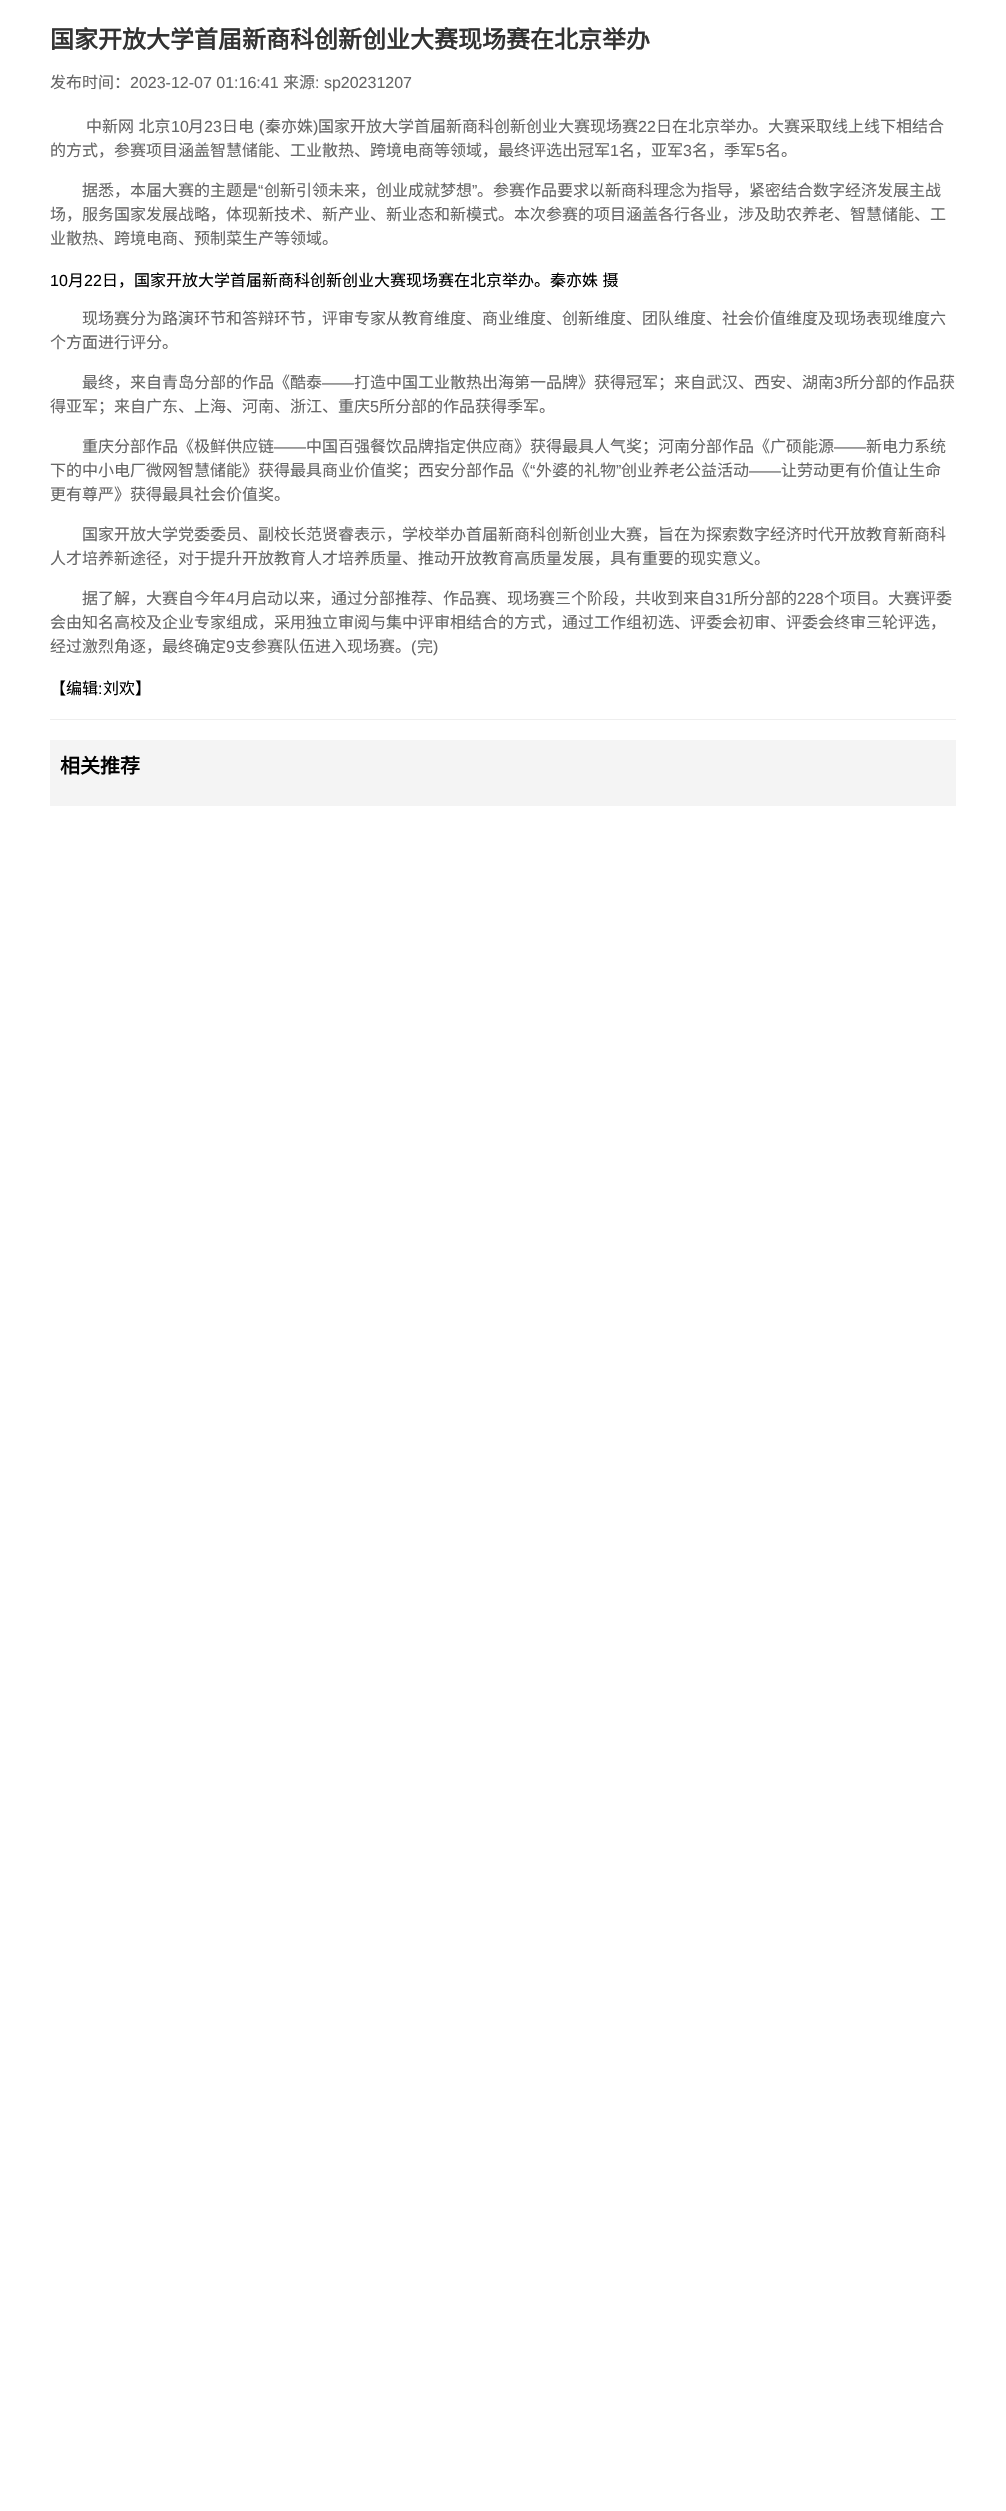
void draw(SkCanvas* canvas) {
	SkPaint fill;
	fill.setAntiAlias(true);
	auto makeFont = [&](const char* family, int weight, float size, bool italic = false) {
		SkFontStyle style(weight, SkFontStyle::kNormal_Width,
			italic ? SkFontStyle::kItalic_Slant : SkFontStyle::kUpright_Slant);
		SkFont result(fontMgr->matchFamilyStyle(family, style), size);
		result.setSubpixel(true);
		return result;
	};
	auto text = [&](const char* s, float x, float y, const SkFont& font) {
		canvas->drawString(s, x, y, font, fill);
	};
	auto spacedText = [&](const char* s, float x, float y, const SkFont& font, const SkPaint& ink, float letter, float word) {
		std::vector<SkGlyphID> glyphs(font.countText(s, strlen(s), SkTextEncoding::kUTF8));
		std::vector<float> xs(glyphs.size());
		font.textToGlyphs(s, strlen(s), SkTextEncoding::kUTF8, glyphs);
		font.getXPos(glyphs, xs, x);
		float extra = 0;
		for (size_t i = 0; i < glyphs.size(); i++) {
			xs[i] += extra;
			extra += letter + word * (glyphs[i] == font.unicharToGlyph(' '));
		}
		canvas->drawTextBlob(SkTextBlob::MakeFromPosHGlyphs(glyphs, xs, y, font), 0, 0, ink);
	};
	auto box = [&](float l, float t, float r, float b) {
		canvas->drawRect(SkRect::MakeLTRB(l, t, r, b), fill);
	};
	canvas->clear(0xFFFFFFFF);
	fill.setColor(0xFFEEEEEE);
	box(50, 719, 956, 720);
	fill.setColor(0xFFF4F4F4);
	box(50, 740, 956, 806);
	auto font1 = makeFont("Noto Sans CJK SC", 700, 24);
	fill.setColor(0xFF333333);
	text("国家开放大学首届新商科创新创业大赛现场赛在北京举办", 50, 48, font1);
	auto font2 = makeFont("Noto Sans CJK SC", 400, 16);
	fill.setColor(0xFF666666);
	text("发布时间：", 50, 88, font2);
	auto font3 = makeFont("Liberation Sans", 400, 16);
	text("2023-12-07 01:16:41", 130, 88, font3);
	text("来源", 283, 88, font2);
	text(": sp20231207", 315, 88, font3);
	spacedText("中新网 北京", 86, 132, font2, fill, 0, 1);
	text("10", 171, 132, font3);
	text("月", 188, 132, font2);
	text("23", 204, 132, font3);
	text("日电", 222, 132, font2);
	text("(", 259, 132, font3);
	text("秦亦姝", 265, 132, font2);
	text(")", 313, 132, font3);
	text("国家开放大学首届新商科创新创业大赛现场赛", 318, 132, font2);
	text("22", 638, 132, font3);
	text("日在北京举办。大赛采取线上线下相结合", 656, 132, font2);
	text("的方式，参赛项目涵盖智慧储能、工业散热、跨境电商等领域，最终评选出冠军", 50, 156, font2);
	text("1", 610, 156, font3);
	text("名，亚军", 619, 156, font2);
	text("3", 683, 156, font3);
	text("名，季军", 692, 156, font2);
	text("5", 756, 156, font3);
	text("名。", 765, 156, font2);
	text("据悉，本届大赛的主题是", 82, 196, font2);
	text("“", 258, 196, font3);
	text("创新引领未来，创业成就梦想", 264, 196, font2);
	text("”", 472, 196, font3);
	text("。参赛作品要求以新商科理念为指导，紧密结合数字经济发展主战", 477, 196, font2);
	text("场，服务国家发展战略，体现新技术、新产业、新业态和新模式。本次参赛的项目涵盖各行各业，涉及助农养老、智慧储能、工", 50, 220, font2);
	text("业散热、跨境电商、预制菜生产等领域。", 50, 244, font2);
	fill.setColor(0xFF000000);
	text("10", 50, 286, font3);
	text("月", 68, 286, font2);
	text("22", 84, 286, font3);
	spacedText("日，国家开放大学首届新商科创新创业大赛现场赛在北京举办。秦亦姝 摄", 102, 286, font2, fill, 0, 1);
	fill.setColor(0xFF666666);
	text("现场赛分为路演环节和答辩环节，评审专家从教育维度、商业维度、创新维度、团队维度、社会价值维度及现场表现维度六", 82, 324, font2);
	text("个方面进行评分。", 50, 348, font2);
	text("最终，来自青岛分部的作品《酷泰", 82, 388, font2);
	text("——", 322, 388, font3);
	text("打造中国工业散热出海第一品牌》获得冠军；来自武汉、西安、湖南", 354, 388, font2);
	text("3", 834, 388, font3);
	text("所分部的作品获", 843, 388, font2);
	text("得亚军；来自广东、上海、河南、浙江、重庆", 50, 412, font2);
	text("5", 370, 412, font3);
	text("所分部的作品获得季军。", 379, 412, font2);
	text("重庆分部作品《极鲜供应链", 82, 452, font2);
	text("——", 274, 452, font3);
	text("中国百强餐饮品牌指定供应商》获得最具人气奖；河南分部作品《广硕能源", 306, 452, font2);
	text("——", 834, 452, font3);
	text("新电力系统", 866, 452, font2);
	text("下的中小电厂微网智慧储能》获得最具商业价值奖；西安分部作品《", 50, 476, font2);
	text("“", 530, 476, font3);
	text("外婆的礼物", 536, 476, font2);
	text("”", 616, 476, font3);
	text("创业养老公益活动", 621, 476, font2);
	text("让劳动更有价值让生命", 781, 476, font2);
	text("——", 749, 476, font3);
	text("更有尊严》获得最具社会价值奖。", 50, 500, font2);
	text("国家开放大学党委委员、副校长范贤睿表示，学校举办首届新商科创新创业大赛，旨在为探索数字经济时代开放教育新商科", 82, 540, font2);
	text("人才培养新途径，对于提升开放教育人才培养质量、推动开放教育高质量发展，具有重要的现实意义。", 50, 564, font2);
	text("据了解，大赛自今年", 82, 604, font2);
	text("4", 226, 604, font3);
	text("月启动以来，通过分部推荐、作品赛、现场赛三个阶段，共收到来自", 235, 604, font2);
	text("31", 715, 604, font3);
	text("所分部的", 733, 604, font2);
	text("228", 797, 604, font3);
	text("个项目。大赛评委", 824, 604, font2);
	text("会由知名高校及企业专家组成，采用独立审阅与集中评审相结合的方式，通过工作组初选、评委会初审、评委会终审三轮评选，", 50, 628, font2);
	text("经过激烈角逐，最终确定", 50, 652, font2);
	text("9", 226, 652, font3);
	text("支参赛队伍进入现场赛。", 235, 652, font2);
	text("(", 411, 652, font3);
	text("完", 417, 652, font2);
	text(")", 433, 652, font3);
	fill.setColor(0xFF000000);
	text("【编辑", 50, 694, font2);
	text(":", 98, 694, font3);
	text("刘欢】", 103, 694, font2);
	auto font4 = makeFont("Noto Sans CJK SC", 700, 20);
	text("相关推荐", 60, 773, font4);
}
